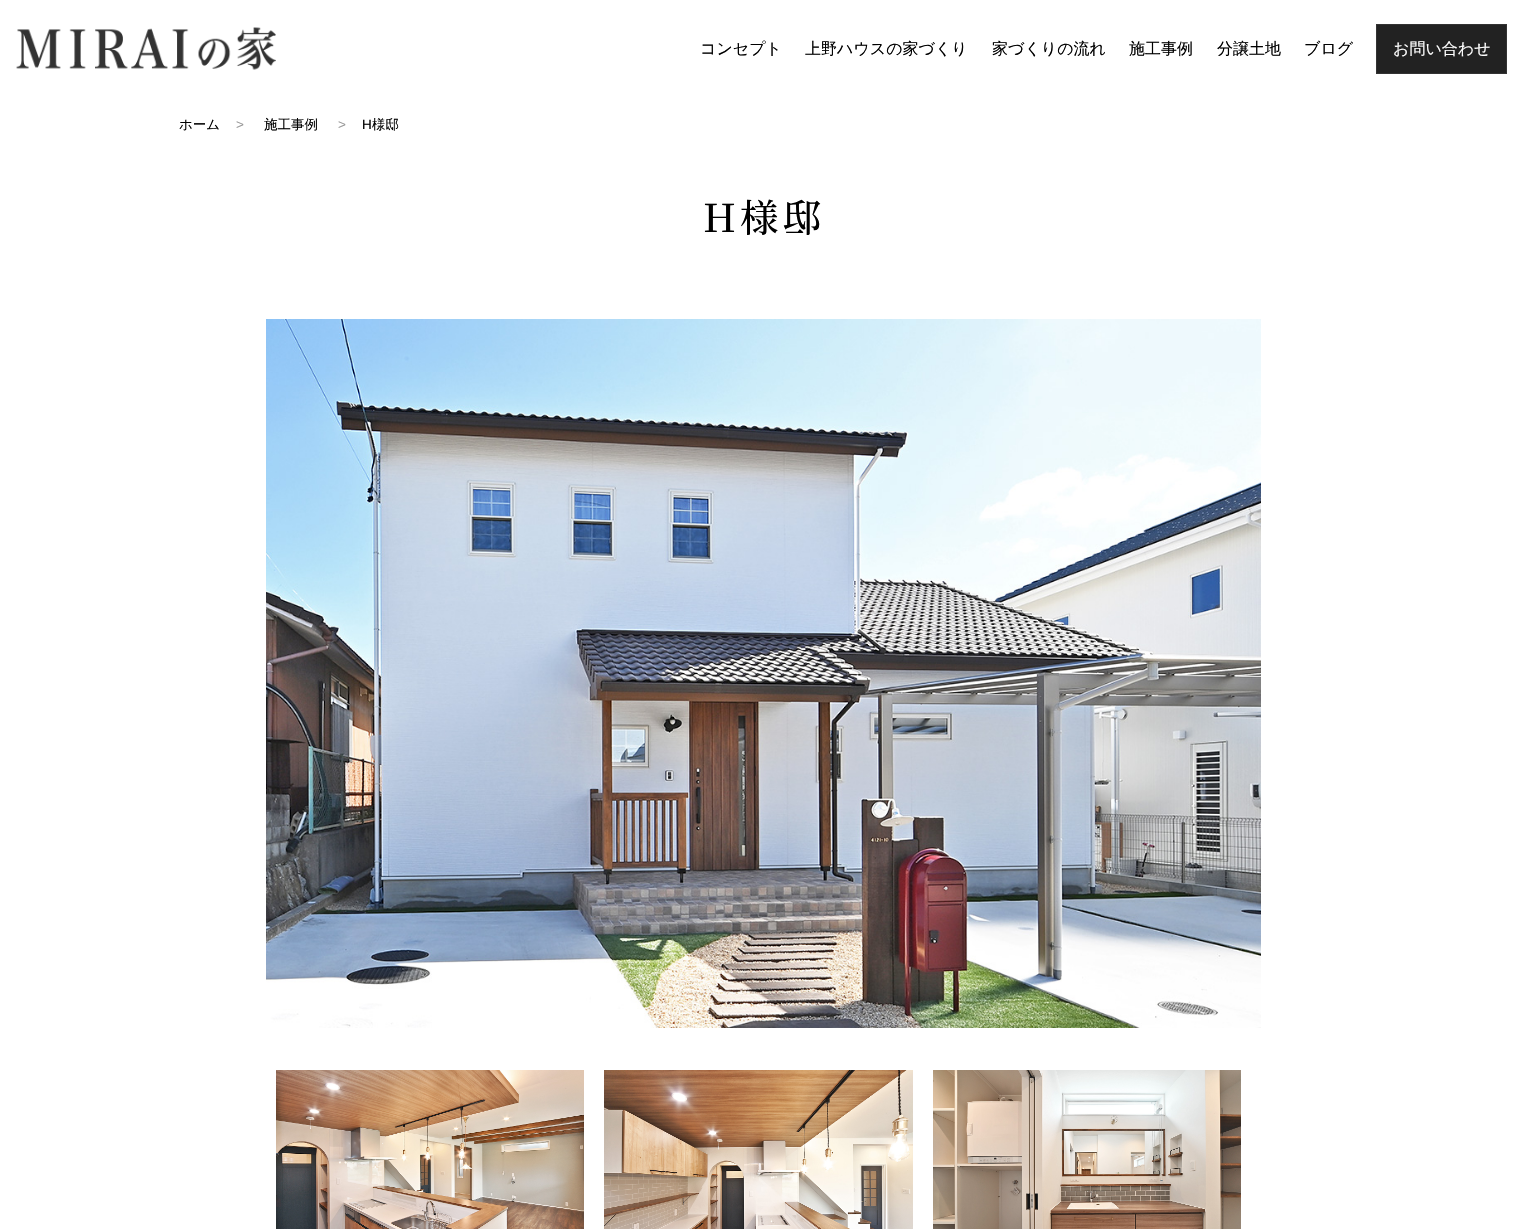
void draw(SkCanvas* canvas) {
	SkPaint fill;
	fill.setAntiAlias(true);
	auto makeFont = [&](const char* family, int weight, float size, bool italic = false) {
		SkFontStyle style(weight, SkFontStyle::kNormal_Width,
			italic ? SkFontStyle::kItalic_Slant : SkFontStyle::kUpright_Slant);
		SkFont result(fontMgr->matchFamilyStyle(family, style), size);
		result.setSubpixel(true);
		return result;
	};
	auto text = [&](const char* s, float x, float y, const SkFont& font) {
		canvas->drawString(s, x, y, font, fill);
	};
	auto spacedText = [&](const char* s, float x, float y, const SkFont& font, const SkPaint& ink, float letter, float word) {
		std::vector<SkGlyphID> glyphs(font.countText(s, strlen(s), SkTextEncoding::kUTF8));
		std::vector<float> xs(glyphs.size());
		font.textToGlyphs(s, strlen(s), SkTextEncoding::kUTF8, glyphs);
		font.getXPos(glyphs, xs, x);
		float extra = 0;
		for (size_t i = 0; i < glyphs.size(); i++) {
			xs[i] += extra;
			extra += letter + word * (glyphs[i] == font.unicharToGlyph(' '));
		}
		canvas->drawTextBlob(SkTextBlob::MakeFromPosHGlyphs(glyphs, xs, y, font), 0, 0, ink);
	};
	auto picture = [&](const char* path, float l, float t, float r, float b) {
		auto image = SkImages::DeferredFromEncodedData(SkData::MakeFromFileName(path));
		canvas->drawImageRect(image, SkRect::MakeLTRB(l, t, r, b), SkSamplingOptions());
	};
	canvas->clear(0xFFFFFFFF);
	picture("image0.png", 16, 27, 276, 70);
	fill.setColor(0xFF222222);
	canvas->drawRect(SkRect::MakeLTRB(1376.5f, 24.5f, 1506.5f, 73.5f), fill);
	fill.setStyle(SkPaint::kStroke_Style);
	fill.setStrokeWidth(1);
	fill.setColor(0xFF333333);
	canvas->drawRect(SkRect::MakeLTRB(1376.5f, 24.5f, 1506.5f, 73.5f), fill);
	picture("image1.png", 266, 319, 1261, 1028);
	picture("image2.png", 276, 1070, 584, 1229);
	picture("image3.png", 604, 1070, 913, 1229);
	picture("image4.png", 933, 1070, 1241, 1229);
	auto font1 = makeFont("WenQuanYi Zen Hei", 500, 16);
	fill.setStyle(SkPaint::kFill_Style);
	fill.setColor(0xFF000000);
	text("コンセプト", 700, 54, font1);
	text("上野ハウスの家づくり", 805, 54, font1);
	text("家づくりの流れ", 992, 54, font1);
	text("施工事例", 1129, 54, font1);
	text("分譲土地", 1217, 54, font1);
	text("ブログ", 1304, 54, font1);
	fill.setColor(0xFFFFFFFF);
	text("お問い合わせ", 1393, 54, font1);
	auto font2 = makeFont("WenQuanYi Zen Hei", 500, 13.5f);
	fill.setColor(0xFF000000);
	text("ホーム", 179, 129, font2);
	auto font3 = makeFont("Liberation Sans", 400, 13.5f);
	fill.setColor(0xFF999999);
	text(">", 236, 129, font3);
	fill.setColor(0xFF000000);
	text("施工事例", 264, 129, font2);
	fill.setColor(0xFF999999);
	text(">", 338, 129, font3);
	fill.setColor(0xFF000000);
	text("H", 362, 129, font3);
	text("様邸", 372, 129, font2);
	auto font4 = makeFont("Noto Serif JP", 200, 38.5f);
	spacedText("H様邸", 703, 232, font4, fill, 4, 0);
}
